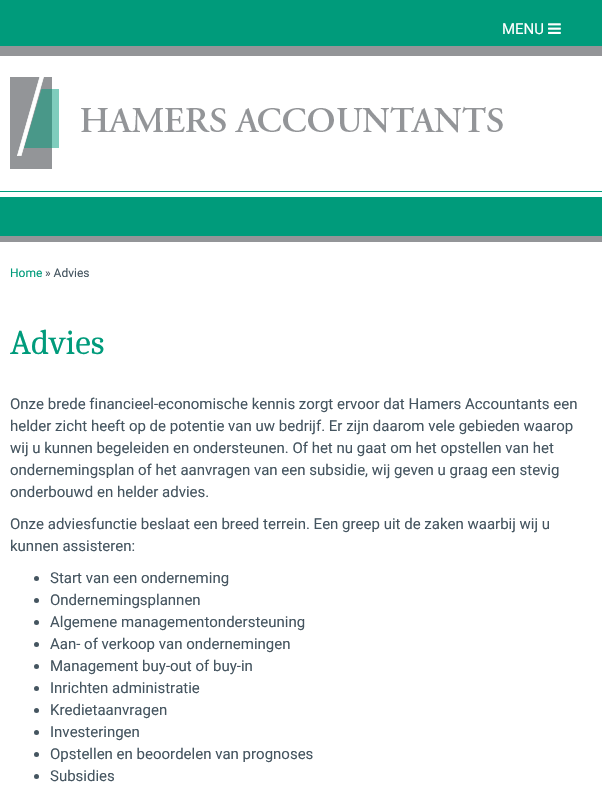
void draw(SkCanvas* canvas) {
	SkPaint fill;
	fill.setAntiAlias(true);
	auto makeFont = [&](const char* family, int weight, float size, bool italic = false) {
		SkFontStyle style(weight, SkFontStyle::kNormal_Width,
			italic ? SkFontStyle::kItalic_Slant : SkFontStyle::kUpright_Slant);
		SkFont result(fontMgr->matchFamilyStyle(family, style), size);
		result.setSubpixel(true);
		return result;
	};
	auto text = [&](const char* s, float x, float y, const SkFont& font) {
		canvas->drawString(s, x, y, font, fill);
	};
	auto box = [&](float l, float t, float r, float b) {
		canvas->drawRect(SkRect::MakeLTRB(l, t, r, b), fill);
	};
	auto picture = [&](const char* path, float l, float t, float r, float b) {
		auto image = SkImages::DeferredFromEncodedData(SkData::MakeFromFileName(path));
		canvas->drawImageRect(image, SkRect::MakeLTRB(l, t, r, b), SkSamplingOptions());
	};
	canvas->clear(0xFFFFFFFF);
	fill.setColor(0xFF009B7B);
	box(0, 0, 602, 46);
	picture("image0.png", 548, 23, 561, 34);
	fill.setColor(0xFF939598);
	box(0, 46, 602, 56);
	fill.setColor(0xFF009B7B);
	box(0, 191, 602, 192);
	picture("image1.png", 10, 77, 503, 169);
	box(0, 197, 602, 236);
	fill.setColor(0xFF939598);
	box(0, 236, 602, 242);
	fill.setColor(0xFF455560);
	canvas->drawCircle(36.5f, 578.5f, 2.5f, fill);
	canvas->drawCircle(36.5f, 600.5f, 2.5f, fill);
	canvas->drawCircle(36.5f, 622.5f, 2.5f, fill);
	canvas->drawCircle(36.5f, 644.5f, 2.5f, fill);
	canvas->drawCircle(36.5f, 666.5f, 2.5f, fill);
	canvas->drawCircle(36.5f, 688.5f, 2.5f, fill);
	canvas->drawCircle(36.5f, 710.5f, 2.5f, fill);
	canvas->drawCircle(36.5f, 732.5f, 2.5f, fill);
	canvas->drawCircle(36.5f, 754.5f, 2.5f, fill);
	canvas->drawCircle(36.5f, 776.5f, 2.5f, fill);
	auto font1 = makeFont("Roboto", 400, 15);
	fill.setColor(0xFFFFFFFF);
	text("MENU", 502, 34, font1);
	auto font2 = makeFont("Roboto", 400, 12);
	fill.setColor(0xFF009B7B);
	text("Home", 10, 277, font2);
	fill.setColor(0xFF455560);
	text("» Advies", 45, 277, font2);
	auto font3 = makeFont("Caladea", 400, 35);
	fill.setColor(0xFF009B7B);
	text("Advies", 10, 354, font3);
	fill.setColor(0xFF455560);
	text("Onze brede financieel-economische kennis zorgt ervoor dat Hamers Accountants een", 10, 409, font1);
	text("helder zicht heeft op de potentie van uw bedrijf. Er zijn daarom vele gebieden waarop", 10, 431, font1);
	text("wij u kunnen begeleiden en ondersteunen. Of het nu gaat om het opstellen van het", 10, 453, font1);
	text("ondernemingsplan of het aanvragen van een subsidie, wij geven u graag een stevig", 10, 475, font1);
	text("onderbouwd en helder advies.", 10, 497, font1);
	text("Onze adviesfunctie beslaat een breed terrein. Een greep uit de zaken waarbij wij u", 10, 529, font1);
	text("kunnen assisteren:", 10, 551, font1);
	text("Start van een onderneming", 50, 583, font1);
	text("Ondernemingsplannen", 50, 605, font1);
	text("Algemene managementondersteuning", 50, 627, font1);
	text("Aan- of verkoop van ondernemingen", 50, 649, font1);
	text("Management buy-out of buy-in", 50, 671, font1);
	text("Inrichten administratie", 50, 693, font1);
	text("Kredietaanvragen", 50, 715, font1);
	text("Investeringen", 50, 737, font1);
	text("Opstellen en beoordelen van prognoses", 50, 759, font1);
	text("Subsidies", 50, 781, font1);
}
